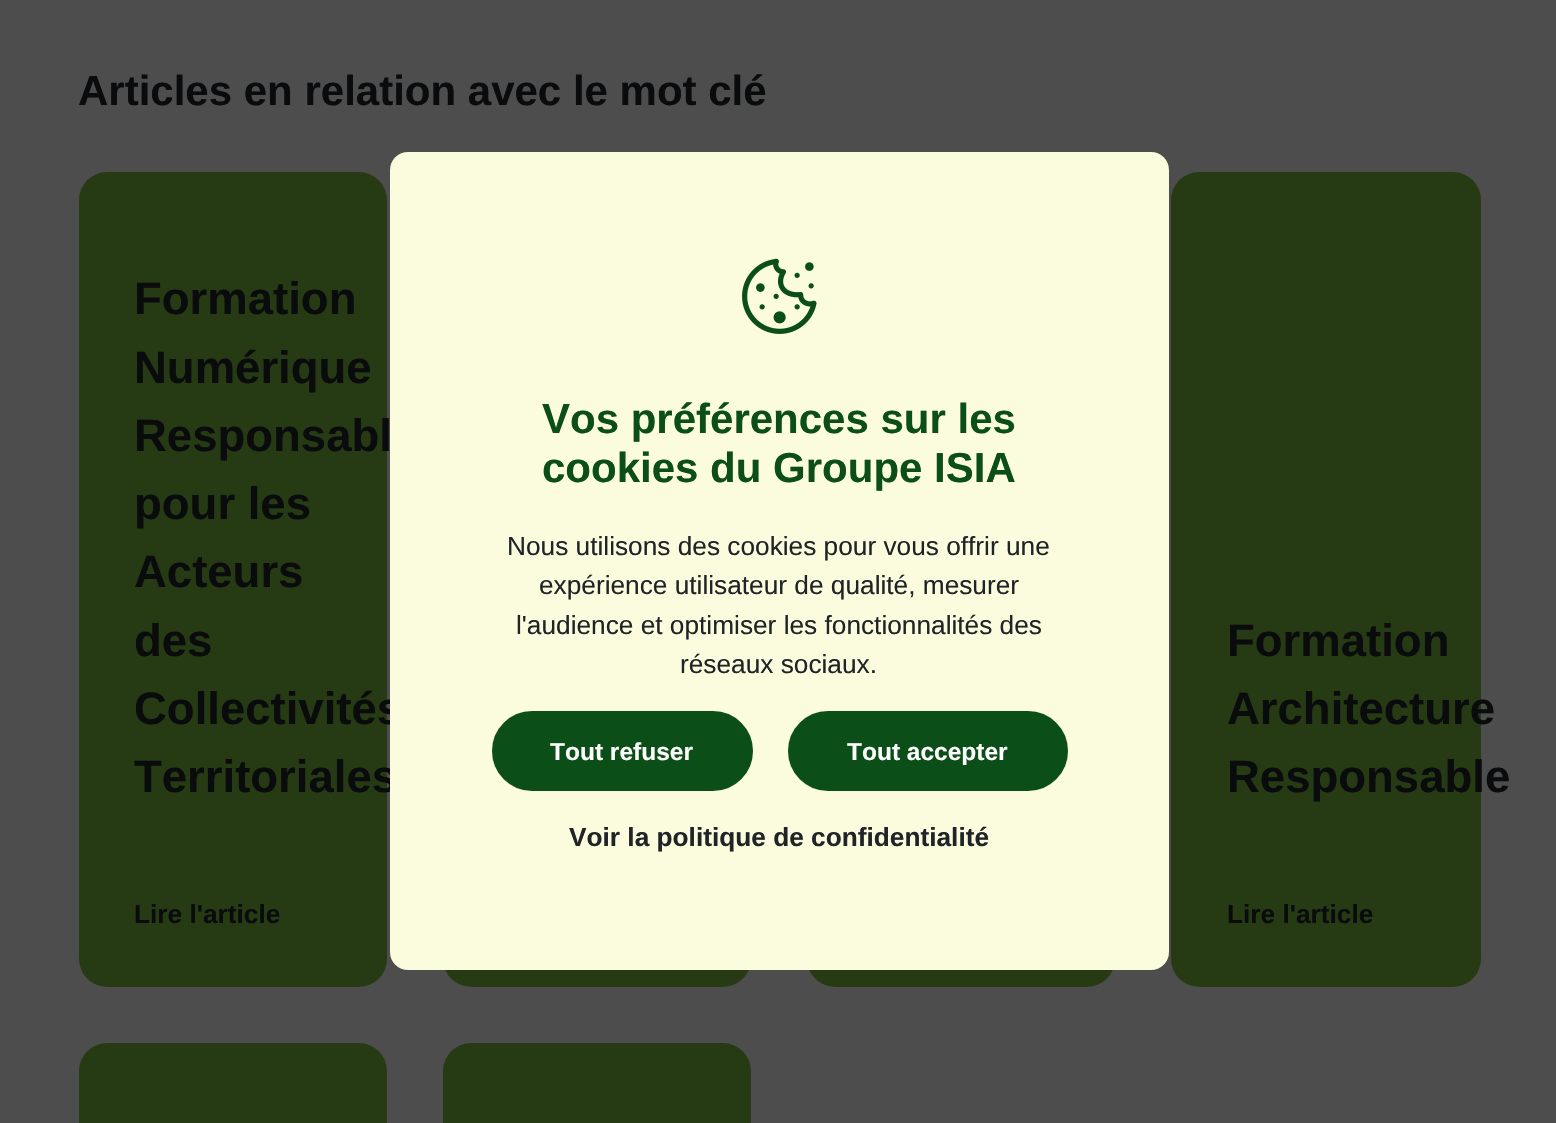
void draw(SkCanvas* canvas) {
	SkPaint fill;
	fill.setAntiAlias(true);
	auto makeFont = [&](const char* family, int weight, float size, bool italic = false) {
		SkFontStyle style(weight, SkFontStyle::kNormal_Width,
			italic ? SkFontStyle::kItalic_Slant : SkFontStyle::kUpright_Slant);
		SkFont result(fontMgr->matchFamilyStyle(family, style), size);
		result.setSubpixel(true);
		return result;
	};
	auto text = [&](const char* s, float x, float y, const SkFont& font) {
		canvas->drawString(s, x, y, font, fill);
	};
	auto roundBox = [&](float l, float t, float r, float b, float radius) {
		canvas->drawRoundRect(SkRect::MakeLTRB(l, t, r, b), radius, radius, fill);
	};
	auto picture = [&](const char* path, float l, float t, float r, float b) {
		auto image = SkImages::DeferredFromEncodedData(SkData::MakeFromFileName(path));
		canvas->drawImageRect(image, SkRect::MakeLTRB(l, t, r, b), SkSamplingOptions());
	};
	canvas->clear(0xFF4D4D4D);
	fill.setColor(0xFF263A14);
	roundBox(79, 172, 387, 987, 28);
	roundBox(443, 172, 751, 987, 28);
	roundBox(807, 172, 1115, 987, 28);
	roundBox(1171, 172, 1481, 987, 28);
	roundBox(79, 1043, 387, 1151, 28);
	roundBox(443, 1043, 751, 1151, 28);
	auto font1 = makeFont("Liberation Sans", 700, 42);
	fill.setColor(0xFF0A0B0C);
	text("Articles en relation avec le mot clé", 78, 105, font1);
	auto font2 = makeFont("Liberation Sans", 700, 45.5f);
	text("Formation", 134, 314, font2);
	text("Numérique", 134, 383, font2);
	text("Responsabl", 134, 451, font2);
	text("pour les", 134, 519, font2);
	text("Acteurs", 134, 587, font2);
	text("des", 134, 656, font2);
	text("Collectivités", 134, 724, font2);
	text("Territoriales", 134, 792, font2);
	auto font3 = makeFont("Liberation Sans", 700, 26.25f);
	text("Lire l'article", 134, 923, font3);
	text("Formation", 1227, 656, font2);
	text("Architecture", 1227, 724, font2);
	text("Responsable", 1227, 792, font2);
	text("Lire l'article", 1227, 923, font3);
	fill.setColor(0xFFFBFBDE);
	roundBox(390, 152, 1169, 970, 18);
	picture("image0.png", 742, 258, 817, 334);
	fill.setColor(0xFF0C4E17);
	text("Vos préférences sur les", 542, 433, font1);
	text("cookies du Groupe ISIA", 542, 482, font1);
	auto font4 = makeFont("Liberation Sans", 400, 26.25f);
	fill.setColor(0xFF202427);
	text("Nous utilisons des cookies pour vous offrir une", 507, 555, font4);
	text("expérience utilisateur de qualité, mesurer", 539, 594, font4);
	text("l'audience et optimiser les fonctionnalités des", 516, 634, font4);
	text("réseaux sociaux.", 680, 673, font4);
	fill.setColor(0xFF0C4E17);
	canvas->drawRoundRect(SkRect::MakeLTRB(494, 713, 751, 789), 38, 38, fill);
	fill.setStyle(SkPaint::kStroke_Style);
	fill.setStrokeWidth(4);
	canvas->drawRoundRect(SkRect::MakeLTRB(494, 713, 751, 789), 38, 38, fill);
	auto font5 = makeFont("Liberation Sans", 700, 24.5f);
	fill.setStyle(SkPaint::kFill_Style);
	fill.setColor(0xFFFFFFFF);
	text("Tout refuser", 550, 760, font5);
	fill.setColor(0xFF0C4E17);
	canvas->drawRoundRect(SkRect::MakeLTRB(790, 713, 1066, 789), 38, 38, fill);
	fill.setStyle(SkPaint::kStroke_Style);
	canvas->drawRoundRect(SkRect::MakeLTRB(790, 713, 1066, 789), 38, 38, fill);
	fill.setStyle(SkPaint::kFill_Style);
	fill.setColor(0xFFFFFFFF);
	text("Tout accepter", 847, 760, font5);
	fill.setColor(0xFF202427);
	text("Voir la politique de confidentialité", 569, 846, font3);
}
